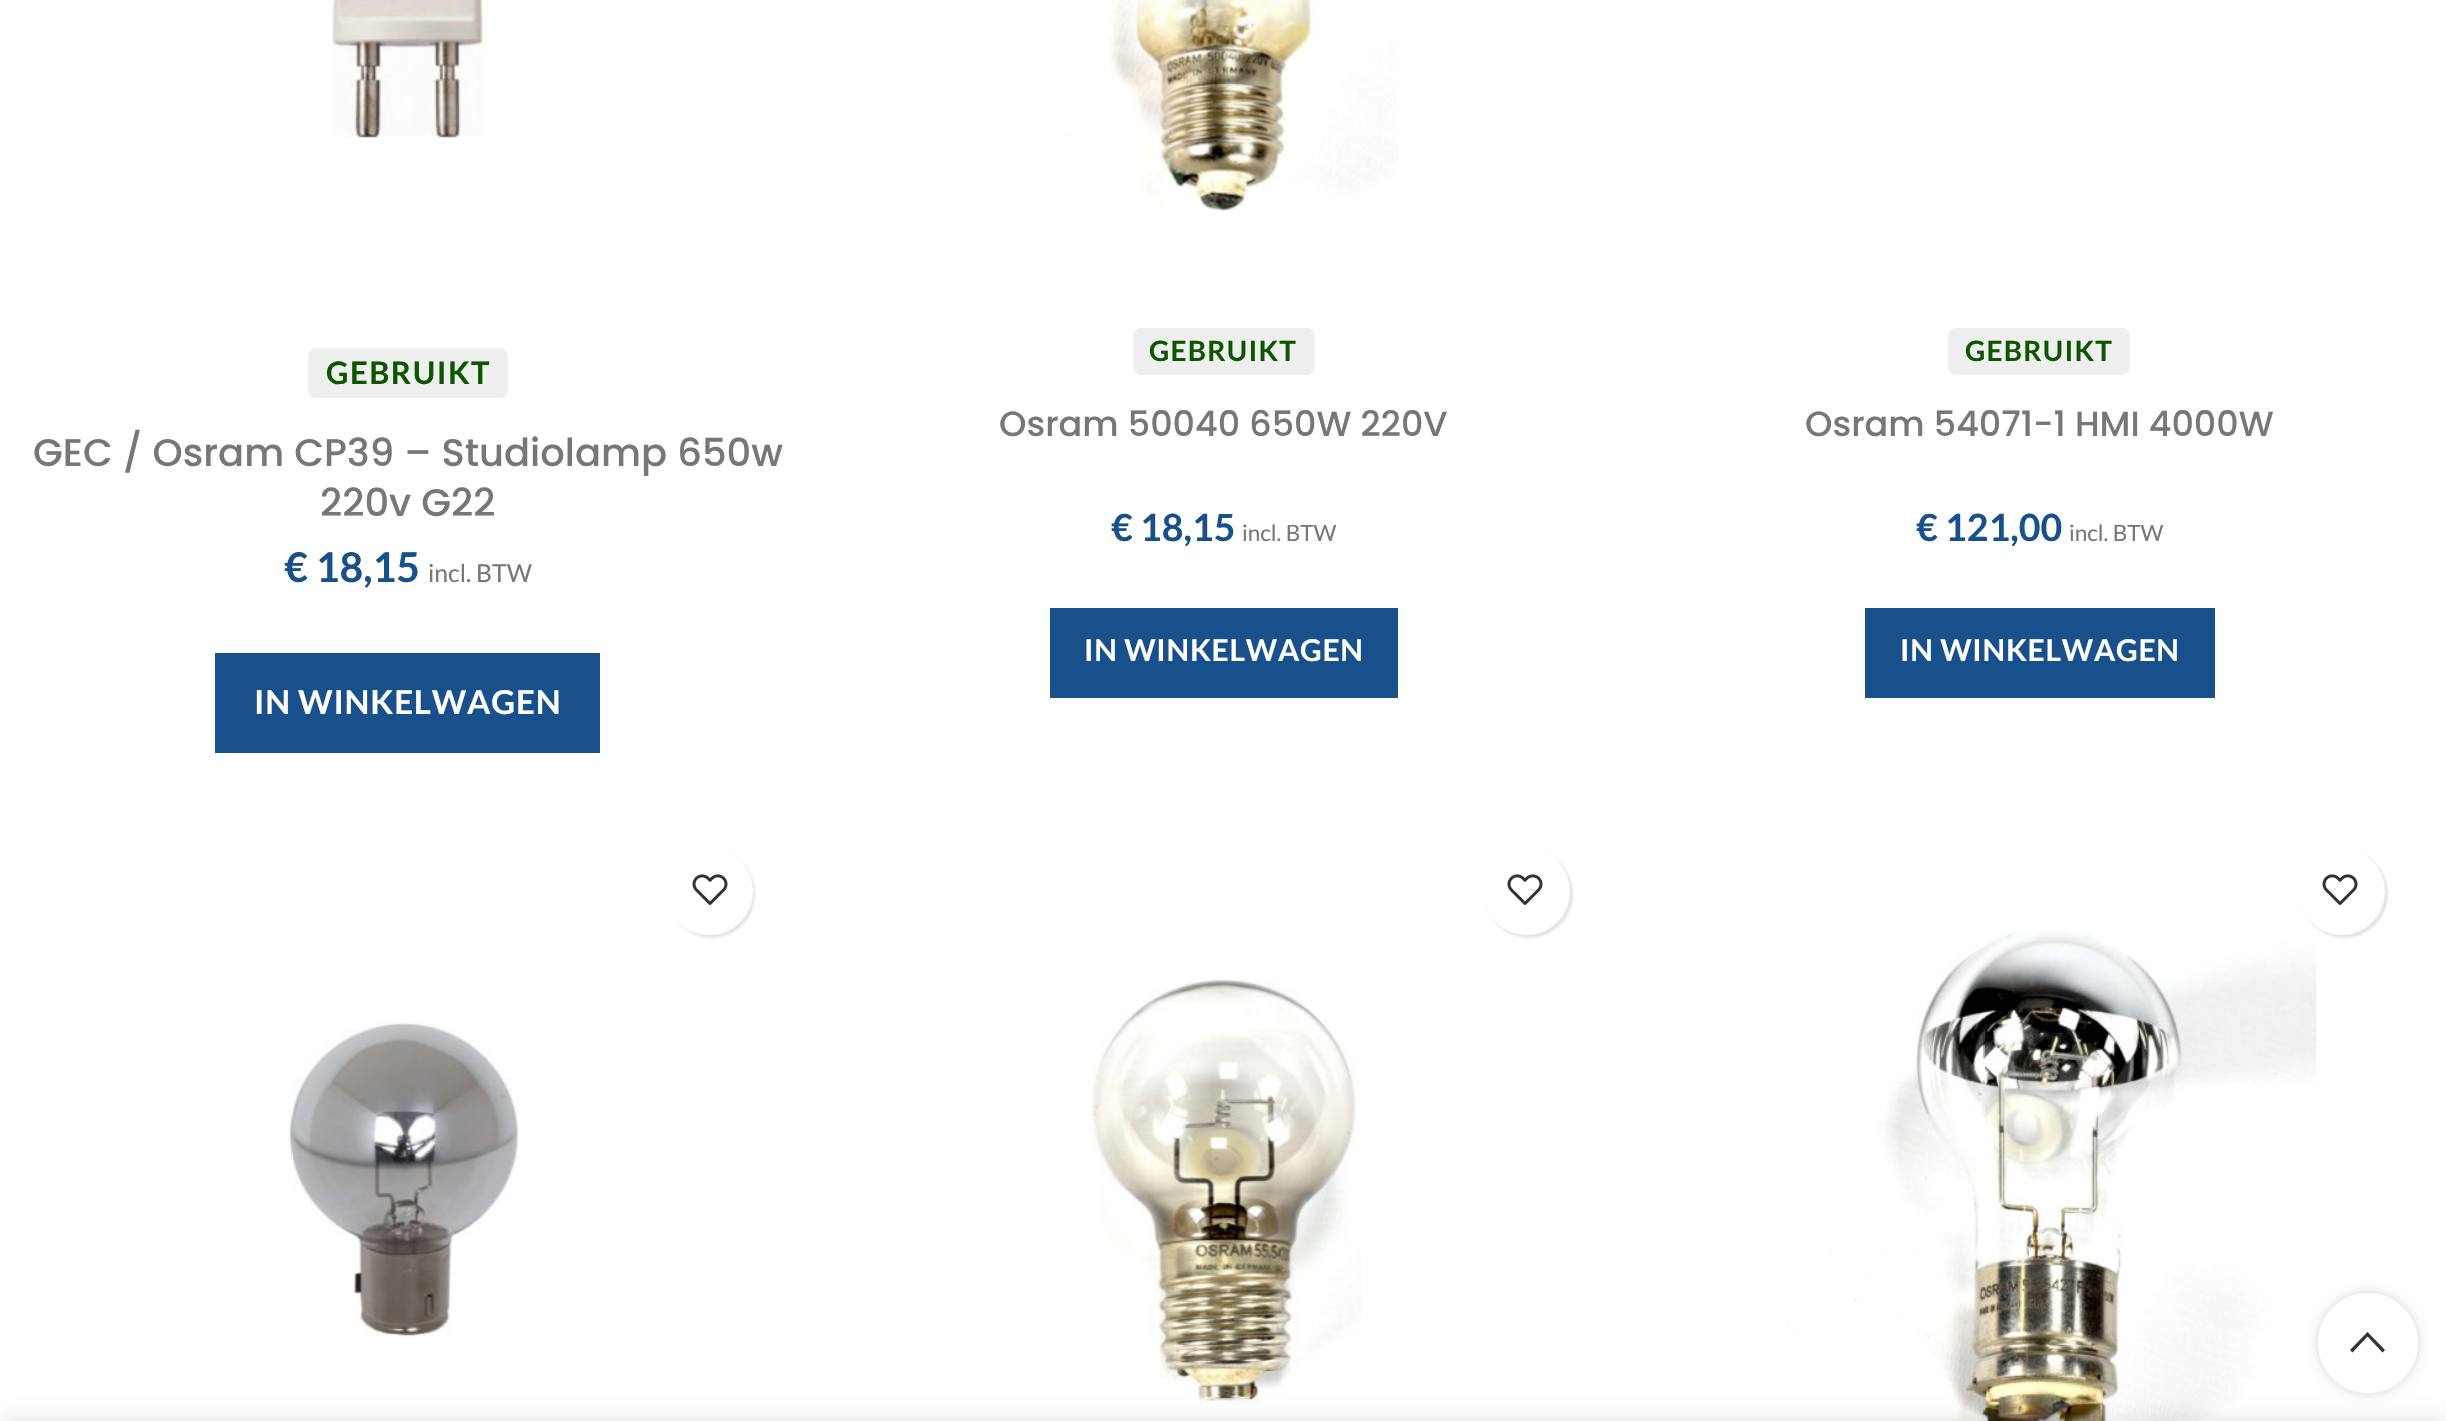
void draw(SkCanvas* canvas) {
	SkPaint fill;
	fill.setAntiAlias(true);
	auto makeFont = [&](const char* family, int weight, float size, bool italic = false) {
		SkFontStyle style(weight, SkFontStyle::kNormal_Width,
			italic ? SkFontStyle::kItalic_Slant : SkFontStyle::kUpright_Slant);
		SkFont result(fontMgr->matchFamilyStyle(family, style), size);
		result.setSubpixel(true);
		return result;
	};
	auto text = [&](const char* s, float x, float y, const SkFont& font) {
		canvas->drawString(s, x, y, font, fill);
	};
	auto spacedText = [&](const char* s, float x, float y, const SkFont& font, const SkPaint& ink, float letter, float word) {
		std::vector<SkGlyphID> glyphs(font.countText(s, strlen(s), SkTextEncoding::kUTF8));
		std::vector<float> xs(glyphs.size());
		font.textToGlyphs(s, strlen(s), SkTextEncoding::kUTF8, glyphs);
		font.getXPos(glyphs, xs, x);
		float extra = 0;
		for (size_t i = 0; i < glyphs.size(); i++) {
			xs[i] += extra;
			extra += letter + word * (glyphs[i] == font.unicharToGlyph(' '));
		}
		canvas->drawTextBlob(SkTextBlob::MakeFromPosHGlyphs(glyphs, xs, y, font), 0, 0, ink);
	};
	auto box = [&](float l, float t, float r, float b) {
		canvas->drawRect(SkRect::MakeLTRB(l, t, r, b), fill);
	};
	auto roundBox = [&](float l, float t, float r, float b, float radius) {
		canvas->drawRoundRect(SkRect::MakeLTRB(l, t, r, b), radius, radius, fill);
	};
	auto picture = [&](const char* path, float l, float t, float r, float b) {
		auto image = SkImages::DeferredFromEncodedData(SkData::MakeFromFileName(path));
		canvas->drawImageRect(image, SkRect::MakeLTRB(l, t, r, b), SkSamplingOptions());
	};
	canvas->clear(0xFFFFFFFF);
	picture("image0.png", 331, 0, 489, 138);
	fill.setColor(0xFFEFEFEF);
	roundBox(308, 348, 508, 398, 8);
	fill.setColor(0xFF18508C);
	box(215, 653, 600, 753);
	picture("image1.png", 1065, 0, 1399, 212);
	fill.setColor(0xFFEFEFEF);
	roundBox(1133, 328, 1315, 375, 8);
	fill.setColor(0xFF18508C);
	box(1050, 608, 1398, 698);
	fill.setColor(0xFFEFEFEF);
	roundBox(1948, 328, 2130, 375, 8);
	fill.setColor(0xFF18508C);
	box(1865, 608, 2215, 698);
	fill.setColor(0x1A000000);
	fill.setMaskFilter(SkMaskFilter::MakeBlur(kNormal_SkBlurStyle, 1));
	canvas->drawRoundRect(SkRect::MakeLTRB(668, 850, 755, 938), 43.5f, 43.5f, fill);
	fill.setMaskFilter(nullptr);
	fill.setColor(0xFFFFFFFF);
	roundBox(665, 848, 753, 935, 43.5f);
	picture("image2.png", 692, 874, 728, 905);
	picture("image3.png", 289, 1022, 519, 1337);
	fill.setColor(0x1A000000);
	fill.setMaskFilter(SkMaskFilter::MakeBlur(kNormal_SkBlurStyle, 1));
	canvas->drawRoundRect(SkRect::MakeLTRB(1485, 850, 1573, 938), 44, 44, fill);
	fill.setMaskFilter(nullptr);
	fill.setColor(0xFFFFFFFF);
	canvas->drawCircle(1526.5f, 891.5f, 43.5f, fill);
	picture("image2.png", 1507, 874, 1543, 905);
	picture("image4.png", 1090, 979, 1362, 1404);
	picture("image5.png", 1786, 931, 2317, 1421);
	fill.setColor(0x1A000000);
	fill.setMaskFilter(SkMaskFilter::MakeBlur(kNormal_SkBlurStyle, 1));
	canvas->drawRoundRect(SkRect::MakeLTRB(2300, 850, 2388, 938), 44, 44, fill);
	fill.setMaskFilter(nullptr);
	fill.setColor(0xFFFFFFFF);
	canvas->drawCircle(2341.5f, 891.5f, 43.5f, fill);
	picture("image2.png", 2322, 874, 2358, 905);
	canvas->save();
	canvas->clipPath(SkPathBuilder(SkPathFillType::kEvenOdd).moveTo(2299, 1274).lineTo(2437, 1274).lineTo(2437, 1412).lineTo(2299, 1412).close().moveTo(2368, 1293).cubicTo(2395.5f, 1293, 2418, 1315.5f, 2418, 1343).cubicTo(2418, 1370.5f, 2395.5f, 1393, 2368, 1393).cubicTo(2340.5f, 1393, 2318, 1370.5f, 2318, 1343).cubicTo(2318, 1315.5f, 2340.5f, 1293, 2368, 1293).close().detach(), true);
	fill.setColor(0x2B000000);
	fill.setMaskFilter(SkMaskFilter::MakeBlur(kNormal_SkBlurStyle, 6));
	canvas->drawRoundRect(SkRect::MakeLTRB(2318, 1293, 2418, 1393), 50, 50, fill);
	fill.setMaskFilter(nullptr);
	canvas->restore();
	fill.setColor(0xE6FFFFFF);
	canvas->drawCircle(2368, 1343, 50, fill);
	fill.setColor(0xFF333333);
	canvas->drawPath(SkPathBuilder().moveTo(2367.5f, 1332).lineTo(2385, 1350).lineTo(2382.5f, 1352.5f).lineTo(2367.5f, 1336.5f).lineTo(2352.5f, 1352.5f).lineTo(2350, 1350).close().detach(), fill);
	fill.setColor(0x24000000);
	fill.setMaskFilter(SkMaskFilter::MakeBlur(kNormal_SkBlurStyle, 11));
	canvas->drawRect(SkRect::MakeLTRB(0, 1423, 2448, 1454), fill);
	fill.setMaskFilter(nullptr);
	auto font1 = makeFont("Lato", 700, 31);
	fill.setColor(0xFF0D5600);
	spacedText("GEBRUIKT", 326, 384, font1, fill, 1.5f, 0);
	auto font2 = makeFont("Poppins", 500, 38.5f);
	fill.setColor(0xFF777777);
	text("GEC / Osram CP39 – Studiolamp 650w", 33, 466, font2);
	text("220v G22", 320, 516, font2);
	auto font3 = makeFont("Lato", 700, 41);
	fill.setColor(0xFF18508C);
	text("€ 18,15", 284, 582, font3);
	auto font4 = makeFont("Lato", 400, 24.75f);
	fill.setColor(0xFF777777);
	text("incl. BTW", 428, 582, font4);
	auto font5 = makeFont("Lato", 700, 33);
	fill.setColor(0xFFFFFFFF);
	spacedText("IN WINKELWAGEN", 254, 714, font5, fill, 0.8f, 0);
	auto font6 = makeFont("Lato", 700, 28);
	fill.setColor(0xFF0D5600);
	spacedText("GEBRUIKT", 1149, 361, font6, fill, 1.25f, 0);
	auto font7 = makeFont("Poppins", 500, 35);
	fill.setColor(0xFF777777);
	text("Osram 50040 650W 220V", 999, 436, font7);
	auto font8 = makeFont("Lato", 700, 37.5f);
	fill.setColor(0xFF18508C);
	text("€ 18,15", 1111, 541, font8);
	auto font9 = makeFont("Lato", 400, 22.5f);
	fill.setColor(0xFF777777);
	text("incl. BTW", 1242, 541, font9);
	auto font10 = makeFont("Lato", 700, 30);
	fill.setColor(0xFFFFFFFF);
	spacedText("IN WINKELWAGEN", 1084, 661, font10, fill, 0.75f, 0);
	fill.setColor(0xFF0D5600);
	spacedText("GEBRUIKT", 1965, 361, font6, fill, 1.25f, 0);
	fill.setColor(0xFF777777);
	text("Osram 54071-1 HMI 4000W", 1805, 436, font7);
	fill.setColor(0xFF18508C);
	text("€ 121,00", 1916, 541, font8);
	fill.setColor(0xFF777777);
	text("incl. BTW", 2069, 541, font9);
	fill.setColor(0xFFFFFFFF);
	spacedText("IN WINKELWAGEN", 1900, 661, font10, fill, 0.75f, 0);
}
